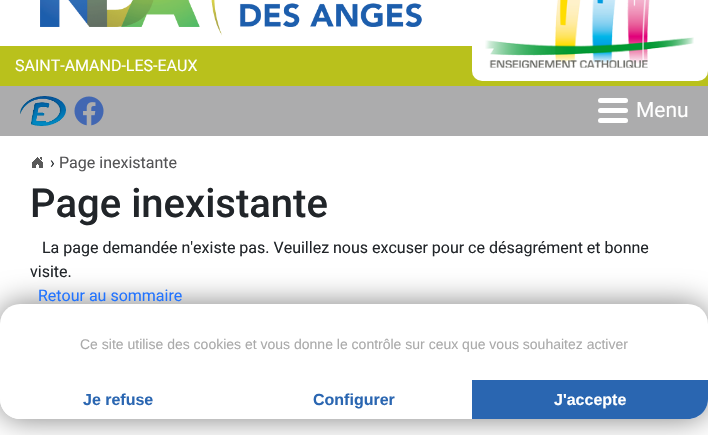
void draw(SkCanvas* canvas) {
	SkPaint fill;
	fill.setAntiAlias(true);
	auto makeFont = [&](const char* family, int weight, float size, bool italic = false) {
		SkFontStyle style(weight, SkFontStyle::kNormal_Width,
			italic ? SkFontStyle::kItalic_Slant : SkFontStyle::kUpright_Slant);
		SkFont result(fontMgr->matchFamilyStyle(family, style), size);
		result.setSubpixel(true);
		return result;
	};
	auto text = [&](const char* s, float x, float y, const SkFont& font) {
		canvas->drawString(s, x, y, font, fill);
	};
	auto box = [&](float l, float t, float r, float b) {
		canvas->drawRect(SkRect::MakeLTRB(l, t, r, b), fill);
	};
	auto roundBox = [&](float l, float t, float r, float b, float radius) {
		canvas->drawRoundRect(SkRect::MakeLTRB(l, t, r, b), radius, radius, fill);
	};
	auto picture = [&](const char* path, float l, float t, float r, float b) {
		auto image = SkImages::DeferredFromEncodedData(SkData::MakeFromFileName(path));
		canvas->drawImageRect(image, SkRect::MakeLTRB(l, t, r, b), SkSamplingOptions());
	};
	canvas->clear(0xFFFFFFFF);
	picture("image0.png", 40, 0, 422, 36);
	fill.setColor(0xFFB9C11C);
	box(0, 46, 708, 86);
	fill.setColor(0xFFFFFFFF);
	roundBox(472, -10, 708, 81, 10);
	picture("image1.png", 485, 0, 694, 68);
	fill.setColor(0xFFACACAD);
	box(0, 86, 708, 136);
	picture("image2.png", 20, 96, 66, 126);
	picture("image3.png", 74, 96, 104, 126);
	fill.setColor(0xFFFFFFFF);
	roundBox(598, 98, 628, 103, 2.5f);
	roundBox(598, 108, 628, 113, 2.5f);
	roundBox(598, 118, 628, 123, 2.5f);
	picture("image4.png", 32, 157, 43, 168);
	fill.setColor(0x80000000);
	fill.setMaskFilter(SkMaskFilter::MakeBlur(kNormal_SkBlurStyle, 15));
	canvas->drawRoundRect(SkRect::MakeLTRB(0, 304, 708, 419), 20, 20, fill);
	fill.setMaskFilter(nullptr);
	fill.setColor(0xFFFFFFFF);
	roundBox(0, 304, 708, 419, 20);
	canvas->drawPath(SkPathBuilder().moveTo(0, 380).lineTo(236, 380).lineTo(236, 419).lineTo(20, 419).cubicTo(9, 419, 0, 410, 0, 399).close().detach(), fill);
	fill.setColor(0xFF2A66B1);
	canvas->drawPath(SkPathBuilder().moveTo(472, 380).lineTo(708, 380).lineTo(708, 399).cubicTo(708, 410, 699, 419, 688, 419).lineTo(472, 419).close().detach(), fill);
	auto font1 = makeFont("Roboto", 400, 16);
	fill.setColor(0xFFFFFFFF);
	text("SAINT-AMAND-LES-EAUX", 15, 71, font1);
	auto font2 = makeFont("Roboto", 400, 21);
	text("Menu", 636, 117, font2);
	fill.setColor(0xFF212529);
	text("›", 50, 168, font1);
	fill.setColor(0xFF545456);
	text("Page inexistante", 59, 168, font1);
	auto font3 = makeFont("Roboto", 500, 40);
	fill.setColor(0xFF212529);
	text("Page inexistante", 30, 217, font3);
	text("La page demandée n'existe pas. Veuillez nous excuser pour ce désagrément et bonne", 42, 253, font1);
	text("visite.", 30, 277, font1);
	fill.setColor(0xFF2173FF);
	text("Retour au sommaire", 38, 301, font1);
	auto font4 = makeFont("Liberation Sans", 400, 14);
	fill.setColor(0xFFAAAAAA);
	text("Ce site utilise des cookies et vous donne le contrôle sur ceux que vous souhaitez activer", 80, 349, font4);
	auto font5 = makeFont("Liberation Sans", 700, 16);
	fill.setColor(0xFF2A66B1);
	text("Je refuse", 83, 405, font5);
	text("Configurer", 313, 405, font5);
	fill.setColor(0xFFFFFFFF);
	text("J'accepte", 554, 405, font5);
}
